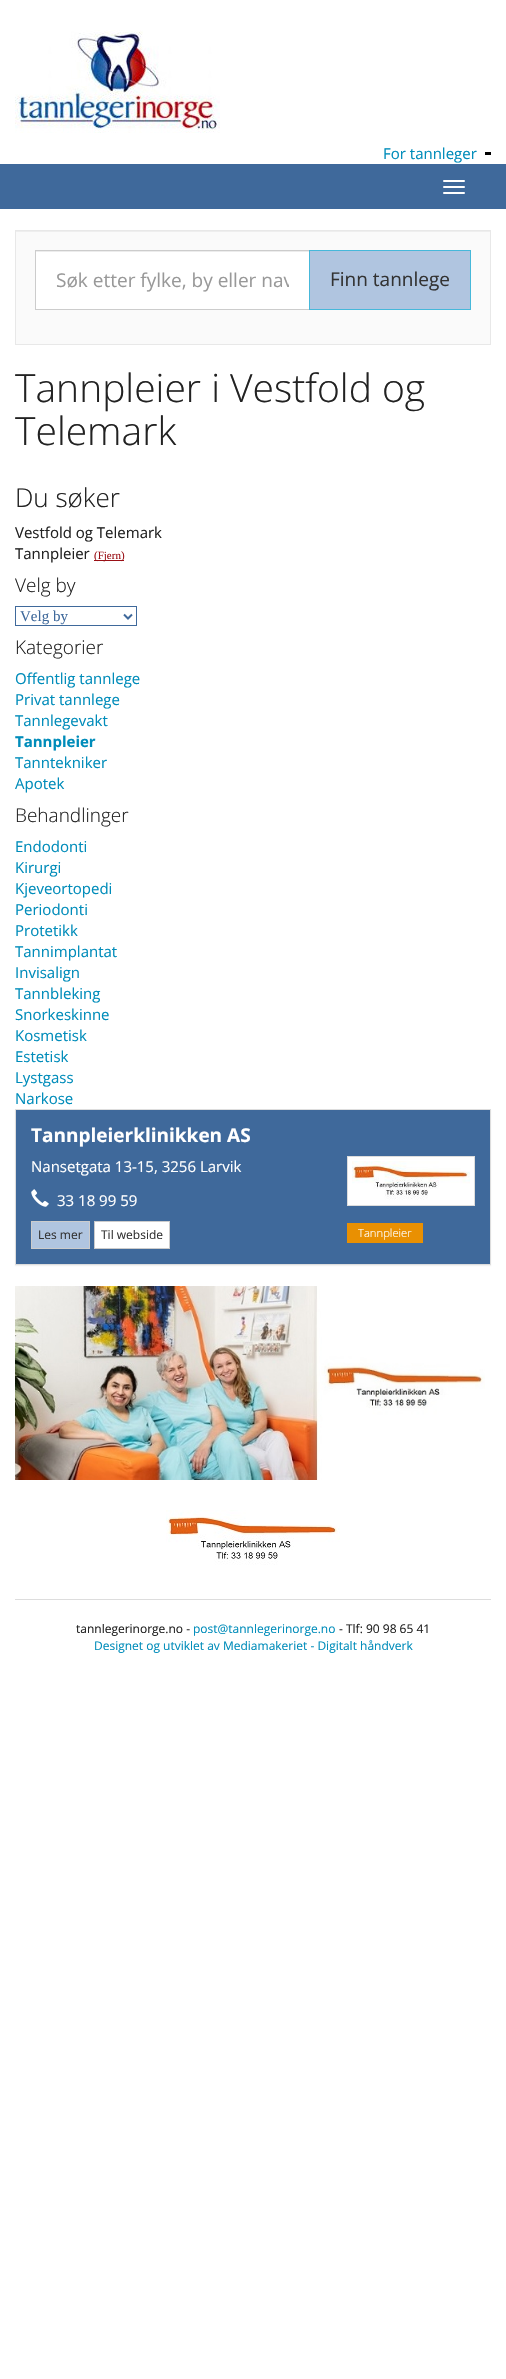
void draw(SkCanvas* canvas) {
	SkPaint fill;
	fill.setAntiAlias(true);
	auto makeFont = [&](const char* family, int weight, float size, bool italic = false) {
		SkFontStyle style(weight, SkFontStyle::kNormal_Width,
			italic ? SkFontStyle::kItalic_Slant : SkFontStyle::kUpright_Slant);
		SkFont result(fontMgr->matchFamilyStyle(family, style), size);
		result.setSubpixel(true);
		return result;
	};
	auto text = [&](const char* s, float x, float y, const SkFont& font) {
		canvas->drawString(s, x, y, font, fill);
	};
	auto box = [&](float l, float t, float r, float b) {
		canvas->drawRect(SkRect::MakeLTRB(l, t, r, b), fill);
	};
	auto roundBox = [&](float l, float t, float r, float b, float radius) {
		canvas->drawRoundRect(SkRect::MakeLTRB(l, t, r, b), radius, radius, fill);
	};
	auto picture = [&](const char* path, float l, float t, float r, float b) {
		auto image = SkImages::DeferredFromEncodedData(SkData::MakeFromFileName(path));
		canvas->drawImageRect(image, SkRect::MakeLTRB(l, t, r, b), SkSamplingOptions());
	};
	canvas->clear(0xFFFFFFFF);
	picture("image0.png", 15, 30, 220, 133);
	fill.setColor(0xFF000000);
	box(485, 152, 491, 155);
	fill.setColor(0xFF3F699B);
	box(0, 164, 506, 209);
	fill.setColor(0xFFFFFFFF);
	roundBox(443, 180, 465, 182, 1);
	roundBox(443, 186, 465, 188, 1);
	roundBox(443, 192, 465, 194, 1);
	fill.setColor(0xFFFAFAFA);
	box(16, 232, 490, 344);
	fill.setColor(0xFFEEEEEE);
	box(16, 231, 490, 232);
	fill.setStyle(SkPaint::kStroke_Style);
	fill.setStrokeWidth(1);
	fill.setColor(0xFFE8E8E8);
	canvas->drawRect(SkRect::MakeLTRB(15.5f, 230.5f, 490.5f, 344.5f), fill);
	fill.setStyle(SkPaint::kFill_Style);
	fill.setColor(0xFFFFFFFF);
	box(36, 252, 309, 309);
	fill.setColor(0xFFECECEC);
	box(36, 251, 309, 252);
	fill.setStyle(SkPaint::kStroke_Style);
	fill.setColor(0xFFCCCCCC);
	canvas->drawRect(SkRect::MakeLTRB(35.5f, 250.5f, 309.5f, 309.5f), fill);
	fill.setStyle(SkPaint::kFill_Style);
	fill.setColor(0xFFB0C5E0);
	canvas->drawRect(SkRect::MakeLTRB(309.5f, 250.5f, 470.5f, 309.5f), fill);
	fill.setStyle(SkPaint::kStroke_Style);
	fill.setColor(0xFF46B8DA);
	canvas->drawRect(SkRect::MakeLTRB(309.5f, 250.5f, 470.5f, 309.5f), fill);
	fill.setStyle(SkPaint::kFill_Style);
	fill.setColor(0xFF9A1016);
	box(94, 560, 124, 561);
	fill.setStyle(SkPaint::kStroke_Style);
	fill.setColor(0xFF3F699B);
	canvas->drawRect(SkRect::MakeLTRB(15.5f, 606.5f, 136.5f, 625.5f), fill);
	fill.setStrokeWidth(2);
	canvas->drawPath(SkPathBuilder().moveTo(124, 614.5f).lineTo(128, 618.5f).lineTo(132, 614.5f).detach(), fill);
	fill.setStyle(SkPaint::kFill_Style);
	fill.setColor(0x0D000000);
	fill.setMaskFilter(SkMaskFilter::MakeBlur(kNormal_SkBlurStyle, 0.5f));
	canvas->drawRect(SkRect::MakeLTRB(15, 1110, 491, 1266), fill);
	fill.setMaskFilter(nullptr);
	fill.setStyle(SkPaint::kStroke_Style);
	fill.setStrokeWidth(1);
	fill.setColor(0xFFDDDDDD);
	canvas->drawRect(SkRect::MakeLTRB(15.5f, 1109.5f, 490.5f, 1264.5f), fill);
	fill.setStyle(SkPaint::kFill_Style);
	fill.setColor(0xFF3F699B);
	box(16, 1110, 490, 1264);
	picture("image1.png", 31, 1189, 49, 1207);
	fill.setColor(0xFFB0C5E0);
	canvas->drawRect(SkRect::MakeLTRB(31.5f, 1221.5f, 89.5f, 1248.5f), fill);
	fill.setStyle(SkPaint::kStroke_Style);
	fill.setColor(0xFFCCCCCC);
	canvas->drawRect(SkRect::MakeLTRB(31.5f, 1221.5f, 89.5f, 1248.5f), fill);
	fill.setStyle(SkPaint::kFill_Style);
	fill.setColor(0xFFFFFFFF);
	canvas->drawRect(SkRect::MakeLTRB(94.5f, 1221.5f, 169.5f, 1248.5f), fill);
	fill.setStyle(SkPaint::kStroke_Style);
	fill.setColor(0xFFCCCCCC);
	canvas->drawRect(SkRect::MakeLTRB(94.5f, 1221.5f, 169.5f, 1248.5f), fill);
	fill.setStyle(SkPaint::kFill_Style);
	fill.setColor(0xFFFFFFFF);
	canvas->drawRect(SkRect::MakeLTRB(347.5f, 1156.5f, 474.5f, 1205.5f), fill);
	fill.setStyle(SkPaint::kStroke_Style);
	fill.setColor(0xFFDDDDDD);
	canvas->drawRect(SkRect::MakeLTRB(347.5f, 1156.5f, 474.5f, 1205.5f), fill);
	picture("image2.png", 352, 1161, 470, 1200);
	fill.setStyle(SkPaint::kFill_Style);
	fill.setColor(0xFFE99002);
	box(347, 1223, 423, 1243);
	picture("image3.png", 15, 1286, 485, 1480);
	picture("image4.png", 166, 1510, 340, 1565);
	fill.setColor(0xFFDDDDDD);
	box(15, 1599, 491, 1600);
	auto font1 = makeFont("Open Sans", 400, 15);
	fill.setColor(0xFF008CBA);
	text("For tannleger", 383, 159, font1);
	canvas->save();
	canvas->clipRect(SkRect::MakeLTRB(56, 267, 289, 293));
	auto font2 = makeFont("Open Sans", 400, 19);
	fill.setColor(0xFF999999);
	text("Søk etter fylke, by eller nav", 56, 287, font2);
	canvas->restore();
	fill.setColor(0xFF333333);
	text("Finn tannlege", 330, 286, font2);
	auto font3 = makeFont("Open Sans", 300, 39);
	fill.setColor(0xFF222222);
	text("Tannpleier i Vestfold og", 15, 402, font3);
	text("Telemark", 15, 445, font3);
	auto font4 = makeFont("Open Sans", 300, 26);
	text("Du søker", 15, 507, font4);
	text("Vestfold og Telemark", 15, 538, font1);
	text("Tannpleier", 15, 559, font1);
	auto font5 = makeFont("Liberation Serif", 400, 11);
	fill.setColor(0xFF9A1016);
	text("(Fjern)", 94, 559, font5);
	auto font6 = makeFont("Open Sans", 300, 19);
	fill.setColor(0xFF222222);
	text("Velg by", 15, 592, font6);
	auto font7 = makeFont("Liberation Serif", 400, 15);
	fill.setColor(0xFF3F699B);
	text("Velg by", 20, 621, font7);
	fill.setColor(0xFF222222);
	text("Kategorier", 15, 654, font6);
	fill.setColor(0xFF008CBA);
	text("Offentlig tannlege", 15, 684, font1);
	text("Privat tannlege", 15, 705, font1);
	text("Tannlegevakt", 15, 726, font1);
	auto font8 = makeFont("Open Sans", 700, 15);
	text("Tannpleier", 15, 747, font8);
	text("Tanntekniker", 15, 768, font1);
	text("Apotek", 15, 789, font1);
	fill.setColor(0xFF222222);
	text("Behandlinger", 15, 822, font6);
	fill.setColor(0xFF008CBA);
	text("Endodonti", 15, 852, font1);
	text("Kirurgi", 15, 873, font1);
	text("Kjeveortopedi", 15, 894, font1);
	text("Periodonti", 15, 915, font1);
	text("Protetikk", 15, 936, font1);
	text("Tannimplantat", 15, 957, font1);
	text("Invisalign", 15, 978, font1);
	text("Tannbleking", 15, 999, font1);
	text("Snorkeskinne", 15, 1020, font1);
	text("Kosmetisk", 15, 1041, font1);
	text("Estetisk", 15, 1062, font1);
	text("Lystgass", 15, 1083, font1);
	text("Narkose", 15, 1104, font1);
	auto font9 = makeFont("Open Sans", 700, 19);
	fill.setColor(0xFFFFFFFF);
	text("Tannpleierklinikken AS", 31, 1142, font9);
	text("Nansetgata 13-15, 3256 Larvik", 31, 1172, font1);
	text("33 18 99 59", 57, 1206, font1);
	auto font10 = makeFont("Open Sans", 400, 12);
	fill.setColor(0xFF333333);
	text("Les mer", 38, 1239, font10);
	text("Til webside", 101, 1239, font10);
	auto font11 = makeFont("Open Sans", 300, 11.25f);
	fill.setColor(0xFFFFFFFF);
	text("Tannpleier", 358, 1237, font11);
	fill.setColor(0xFF222222);
	text("tannlegerinorge.no -", 76, 1633, font10);
	fill.setColor(0xFF008CBA);
	text("post@tannlegerinorge.no", 193, 1633, font10);
	fill.setColor(0xFF222222);
	text("- Tlf: 90 98 65 41", 339, 1633, font10);
	fill.setColor(0xFF008CBA);
	text("Designet og utviklet av Mediamakeriet - Digitalt håndverk", 94, 1650, font10);
}
